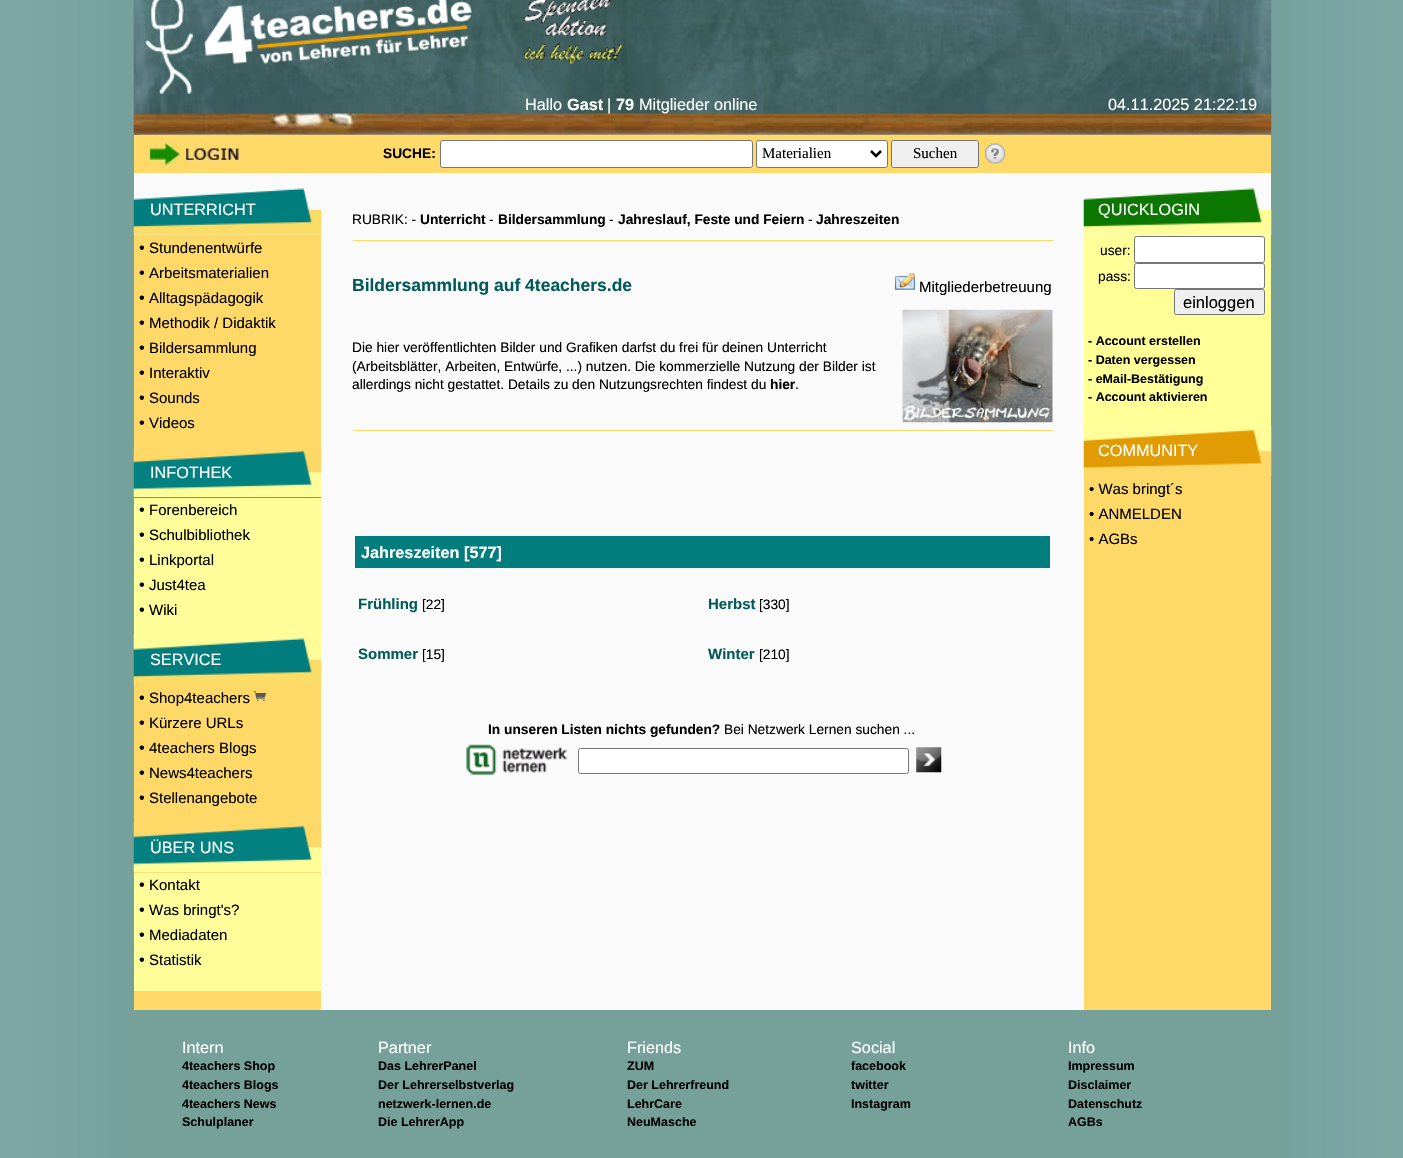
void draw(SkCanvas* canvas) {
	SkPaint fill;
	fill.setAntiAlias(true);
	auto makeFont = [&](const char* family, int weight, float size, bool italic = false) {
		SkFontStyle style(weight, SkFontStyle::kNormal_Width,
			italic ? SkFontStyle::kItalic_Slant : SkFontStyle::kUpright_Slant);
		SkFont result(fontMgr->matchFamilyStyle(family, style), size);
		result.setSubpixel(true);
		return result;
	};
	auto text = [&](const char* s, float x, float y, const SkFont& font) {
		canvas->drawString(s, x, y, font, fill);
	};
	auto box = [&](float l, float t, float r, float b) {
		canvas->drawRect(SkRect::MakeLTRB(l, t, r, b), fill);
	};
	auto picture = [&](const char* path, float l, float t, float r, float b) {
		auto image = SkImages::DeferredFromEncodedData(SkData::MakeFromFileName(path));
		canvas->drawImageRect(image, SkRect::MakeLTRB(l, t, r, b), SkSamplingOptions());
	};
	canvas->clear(0xFFFFFFFF);
	picture("image0.png", 0, 0, 1403, 1158);
	picture("image1.png", 133, 0, 1272, 135);
	picture("image2.png", 145, 0, 193, 94);
	picture("image3.png", 204, 0, 472, 64);
	picture("image4.png", 523, 0, 623, 64);
	fill.setColor(0xFFFFDA68);
	box(134, 135, 1271, 173);
	picture("image5.png", 146, 141, 245, 167);
	fill.setColor(0xFFFFFFFF);
	canvas->drawRoundRect(SkRect::MakeLTRB(440.5f, 140.5f, 752.5f, 167.5f), 2, 2, fill);
	fill.setStyle(SkPaint::kStroke_Style);
	fill.setStrokeWidth(1);
	fill.setColor(0xFF767676);
	canvas->drawRoundRect(SkRect::MakeLTRB(440.5f, 140.5f, 752.5f, 167.5f), 2, 2, fill);
	fill.setStyle(SkPaint::kFill_Style);
	fill.setColor(0xFFFFFFFF);
	canvas->drawRoundRect(SkRect::MakeLTRB(756.5f, 140.5f, 887.5f, 167.5f), 2, 2, fill);
	fill.setStyle(SkPaint::kStroke_Style);
	fill.setColor(0xFF767676);
	canvas->drawRoundRect(SkRect::MakeLTRB(756.5f, 140.5f, 887.5f, 167.5f), 2, 2, fill);
	fill.setStrokeWidth(2.5f);
	fill.setColor(0xFF000000);
	canvas->drawPath(SkPathBuilder().moveTo(871, 151).lineTo(876, 156).lineTo(881, 151).detach(), fill);
	fill.setStyle(SkPaint::kFill_Style);
	fill.setColor(0xFFEFEFEF);
	canvas->drawRoundRect(SkRect::MakeLTRB(891.5f, 140.5f, 978.5f, 167.5f), 2, 2, fill);
	fill.setStyle(SkPaint::kStroke_Style);
	fill.setStrokeWidth(1);
	fill.setColor(0xFF767676);
	canvas->drawRoundRect(SkRect::MakeLTRB(891.5f, 140.5f, 978.5f, 167.5f), 2, 2, fill);
	picture("image6.png", 984, 143, 1006, 164);
	fill.setStyle(SkPaint::kFill_Style);
	fill.setColor(0xFFFFD968);
	box(134, 235, 321, 1010);
	fill.setColor(0xFFFAFAFA);
	box(134, 173, 142, 235);
	picture("image7.png", 133, 188, 322, 235);
	fill.setColor(0xFF3366FF);
	box(134, 497, 321, 498);
	picture("image8.png", 133, 447, 322, 498);
	fill.setColor(0xFFFFFD9A);
	box(134, 498, 321, 635);
	picture("image9.png", 133, 634, 322, 685);
	picture("image10.png", 253, 691, 267, 702);
	picture("image11.png", 133, 822, 322, 873);
	box(134, 873, 321, 991);
	fill.setColor(0xFFFFD968);
	box(353, 240, 1053, 241);
	picture("image12.png", 895, 273, 915, 290);
	picture("image13.png", 902, 309, 1053, 423);
	box(353, 430, 1053, 431);
	fill.setColor(0xFF027D7D);
	box(355, 536, 1050, 568);
	picture("image14.png", 466, 744, 568, 775);
	fill.setColor(0xFFFFFFFF);
	canvas->drawRoundRect(SkRect::MakeLTRB(578.5f, 748.5f, 908.5f, 773.5f), 2, 2, fill);
	fill.setStyle(SkPaint::kStroke_Style);
	fill.setColor(0xFF767676);
	canvas->drawRoundRect(SkRect::MakeLTRB(578.5f, 748.5f, 908.5f, 773.5f), 2, 2, fill);
	picture("image15.png", 916, 747, 942, 773);
	fill.setStyle(SkPaint::kFill_Style);
	fill.setColor(0xFFFFD968);
	box(1084, 476, 1271, 1010);
	fill.setColor(0xFFFAFAFA);
	box(1189, 173, 1271, 235);
	picture("image16.png", 1083, 188, 1272, 235);
	fill.setColor(0xFFFFFF97);
	box(1084, 235, 1271, 426);
	fill.setColor(0xFFFFFFFF);
	canvas->drawRoundRect(SkRect::MakeLTRB(1134.5f, 236.5f, 1264.5f, 262.5f), 2, 2, fill);
	fill.setStyle(SkPaint::kStroke_Style);
	fill.setColor(0xFF767676);
	canvas->drawRoundRect(SkRect::MakeLTRB(1134.5f, 236.5f, 1264.5f, 262.5f), 2, 2, fill);
	fill.setStyle(SkPaint::kFill_Style);
	fill.setColor(0xFFFFFFFF);
	canvas->drawRoundRect(SkRect::MakeLTRB(1134.5f, 263.5f, 1264.5f, 288.5f), 2, 2, fill);
	fill.setStyle(SkPaint::kStroke_Style);
	fill.setColor(0xFF767676);
	canvas->drawRoundRect(SkRect::MakeLTRB(1134.5f, 263.5f, 1264.5f, 288.5f), 2, 2, fill);
	fill.setStyle(SkPaint::kFill_Style);
	fill.setColor(0xFFEFEFEF);
	canvas->drawRoundRect(SkRect::MakeLTRB(1174.5f, 289.5f, 1264.5f, 314.5f), 2, 2, fill);
	fill.setStyle(SkPaint::kStroke_Style);
	fill.setColor(0xFF767676);
	canvas->drawRoundRect(SkRect::MakeLTRB(1174.5f, 289.5f, 1264.5f, 314.5f), 2, 2, fill);
	picture("image17.png", 1083, 426, 1272, 476);
	fill.setStyle(SkPaint::kFill_Style);
	fill.setColor(0xFF76A19A);
	box(137, 1010, 1269, 1158);
	auto font1 = makeFont("Liberation Sans", 400, 16.25f);
	fill.setColor(0xFFFFFFFF);
	text("Hallo", 525, 110, font1);
	auto font2 = makeFont("Liberation Sans", 700, 16.25f);
	text("Gast", 567, 110, font2);
	text("|", 607, 110, font1);
	text("79", 616, 110, font2);
	text("Mitglieder online", 639, 110, font1);
	text("04.11.2025 21:22:19", 1108, 110, font1);
	auto font3 = makeFont("Liberation Sans", 700, 13.75f);
	fill.setColor(0xFF000000);
	text("SUCHE:", 383, 158, font3);
	auto font4 = makeFont("Liberation Serif", 400, 15);
	text("Materialien", 762, 158, font4);
	text("Suchen", 913, 158, font4);
	fill.setColor(0xFFFFFFFF);
	text("UNTERRICHT", 150, 215, font1);
	fill.setColor(0xFF000000);
	text("•", 139, 253, font1);
	auto font5 = makeFont("Liberation Sans", 400, 15);
	text("Stundenentwürfe", 149, 253, font5);
	text("•", 139, 278, font1);
	text("Arbeitsmaterialien", 149, 278, font5);
	text("•", 139, 303, font1);
	text("Alltagspädagogik", 149, 303, font5);
	text("•", 139, 328, font1);
	text("Methodik / Didaktik", 149, 328, font5);
	text("•", 139, 353, font1);
	text("Bildersammlung", 149, 353, font5);
	text("•", 139, 378, font1);
	text("Interaktiv", 149, 378, font5);
	text("•", 139, 403, font1);
	text("Sounds", 149, 403, font5);
	text("•", 139, 428, font1);
	text("Videos", 149, 428, font5);
	fill.setColor(0xFFFFFFFF);
	text("INFOTHEK", 150, 478, font1);
	fill.setColor(0xFF000000);
	text("•", 139, 515, font1);
	text("Forenbereich", 149, 515, font5);
	text("•", 139, 540, font1);
	text("Schulbibliothek", 149, 540, font5);
	text("•", 139, 565, font1);
	text("Linkportal", 149, 565, font5);
	text("•", 139, 590, font1);
	text("Just4tea", 149, 590, font5);
	text("•", 139, 615, font1);
	text("Wiki", 149, 615, font5);
	fill.setColor(0xFFFFFFFF);
	text("SERVICE", 150, 665, font1);
	fill.setColor(0xFF000000);
	text("•", 139, 703, font1);
	text("Shop4teachers", 149, 703, font5);
	text("•", 139, 728, font1);
	text("Kürzere URLs", 149, 728, font5);
	text("•", 139, 753, font1);
	text("4teachers Blogs", 149, 753, font5);
	text("•", 139, 778, font1);
	text("News4teachers", 149, 778, font5);
	text("•", 139, 803, font1);
	text("Stellenangebote", 149, 803, font5);
	fill.setColor(0xFFFFFFFF);
	text("ÜBER UNS", 150, 853, font1);
	fill.setColor(0xFF000000);
	text("•", 139, 890, font1);
	text("Kontakt", 149, 890, font5);
	text("•", 139, 915, font1);
	text("Was bringt's?", 149, 915, font5);
	text("•", 139, 940, font1);
	text("Mediadaten", 149, 940, font5);
	text("•", 139, 965, font1);
	text("Statistik", 149, 965, font5);
	auto font6 = makeFont("Liberation Sans", 400, 13.75f);
	text("RUBRIK: -", 352, 224, font6);
	text("Unterricht", 420, 224, font3);
	text("-", 489, 224, font6);
	text("Bildersammlung", 498, 224, font3);
	text("-", 609, 224, font6);
	text("Jahreslauf, Feste und Feiern", 618, 224, font3);
	text("-", 808, 224, font6);
	text("Jahreszeiten", 816, 224, font3);
	auto font7 = makeFont("Liberation Sans", 700, 17.5f);
	fill.setColor(0xFF015B5B);
	text("Bildersammlung auf 4teachers.de", 352, 291, font7);
	fill.setColor(0xFF000000);
	text("Mitgliederbetreuung", 919, 292, font5);
	text("Die hier veröffentlichten Bilder und Grafiken darfst du frei für deinen Unterricht", 352, 352, font6);
	text("(Arbeitsblätter, Arbeiten, Entwürfe, ...) nutzen. Die kommerzielle Nutzung der Bilder ist", 352, 371, font6);
	text("allerdings nicht gestattet. Details zu den Nutzungsrechten findest du", 352, 389, font6);
	text("hier", 770, 389, font3);
	text(".", 795, 389, font6);
	fill.setColor(0xFFFFFFFF);
	text("Jahreszeiten [577]", 361, 558, font2);
	auto font8 = makeFont("Liberation Sans", 700, 15);
	fill.setColor(0xFF015B5B);
	text("Frühling", 358, 609, font8);
	fill.setColor(0xFF000000);
	text("[22]", 422, 609, font6);
	fill.setColor(0xFF015B5B);
	text("Herbst", 708, 609, font8);
	fill.setColor(0xFF000000);
	text("[330]", 759, 609, font6);
	fill.setColor(0xFF015B5B);
	text("Sommer", 358, 659, font8);
	fill.setColor(0xFF000000);
	text("[15]", 422, 659, font6);
	fill.setColor(0xFF015B5B);
	text("Winter", 708, 659, font8);
	fill.setColor(0xFF000000);
	text("[210]", 759, 659, font6);
	text("In unseren Listen nichts gefunden?", 488, 734, font3);
	text("Bei Netzwerk Lernen suchen ...", 724, 734, font6);
	fill.setColor(0xFFFFFFFF);
	text("QUICKLOGIN", 1098, 215, font1);
	fill.setColor(0xFF000000);
	text("user:", 1100, 255, font6);
	text("pass:", 1098, 281, font6);
	auto font9 = makeFont("Liberation Sans", 400, 16.5f);
	text("einloggen", 1183, 308, font9);
	auto font10 = makeFont("Liberation Sans", 700, 12.5f);
	text("- Account erstellen", 1088, 345, font10);
	text("- Daten vergessen", 1088, 364, font10);
	text("- eMail-Bestätigung", 1088, 383, font10);
	text("- Account aktivieren", 1088, 401, font10);
	fill.setColor(0xFFFFFFFF);
	text("COMMUNITY", 1098, 456, font1);
	fill.setColor(0xFF000000);
	text("• Was bringt´s", 1089, 494, font5);
	text("• ANMELDEN", 1089, 519, font5);
	text("• AGBs", 1089, 544, font5);
	fill.setColor(0xFFFFFFFF);
	text("Intern", 182, 1053, font1);
	fill.setColor(0xFF000000);
	text("4teachers Shop", 182, 1070, font10);
	text("4teachers Blogs", 182, 1089, font10);
	text("4teachers News", 182, 1108, font10);
	text("Schulplaner", 182, 1126, font10);
	fill.setColor(0xFFFFFFFF);
	text("Partner", 378, 1053, font1);
	fill.setColor(0xFF000000);
	text("Das LehrerPanel", 378, 1070, font10);
	text("Der Lehrerselbstverlag", 378, 1089, font10);
	text("netzwerk-lernen.de", 378, 1108, font10);
	text("Die LehrerApp", 378, 1126, font10);
	fill.setColor(0xFFFFFFFF);
	text("Friends", 627, 1053, font1);
	fill.setColor(0xFF000000);
	text("ZUM", 627, 1070, font10);
	text("Der Lehrerfreund", 627, 1089, font10);
	text("LehrCare", 627, 1108, font10);
	text("NeuMasche", 627, 1126, font10);
	fill.setColor(0xFFFFFFFF);
	text("Social", 851, 1053, font1);
	fill.setColor(0xFF000000);
	text("facebook", 851, 1070, font10);
	text("twitter", 851, 1089, font10);
	text("Instagram", 851, 1108, font10);
	fill.setColor(0xFFFFFFFF);
	text("Info", 1068, 1053, font1);
	fill.setColor(0xFF000000);
	text("Impressum", 1068, 1070, font10);
	text("Disclaimer", 1068, 1089, font10);
	text("Datenschutz", 1068, 1108, font10);
	text("AGBs", 1068, 1126, font10);
}
